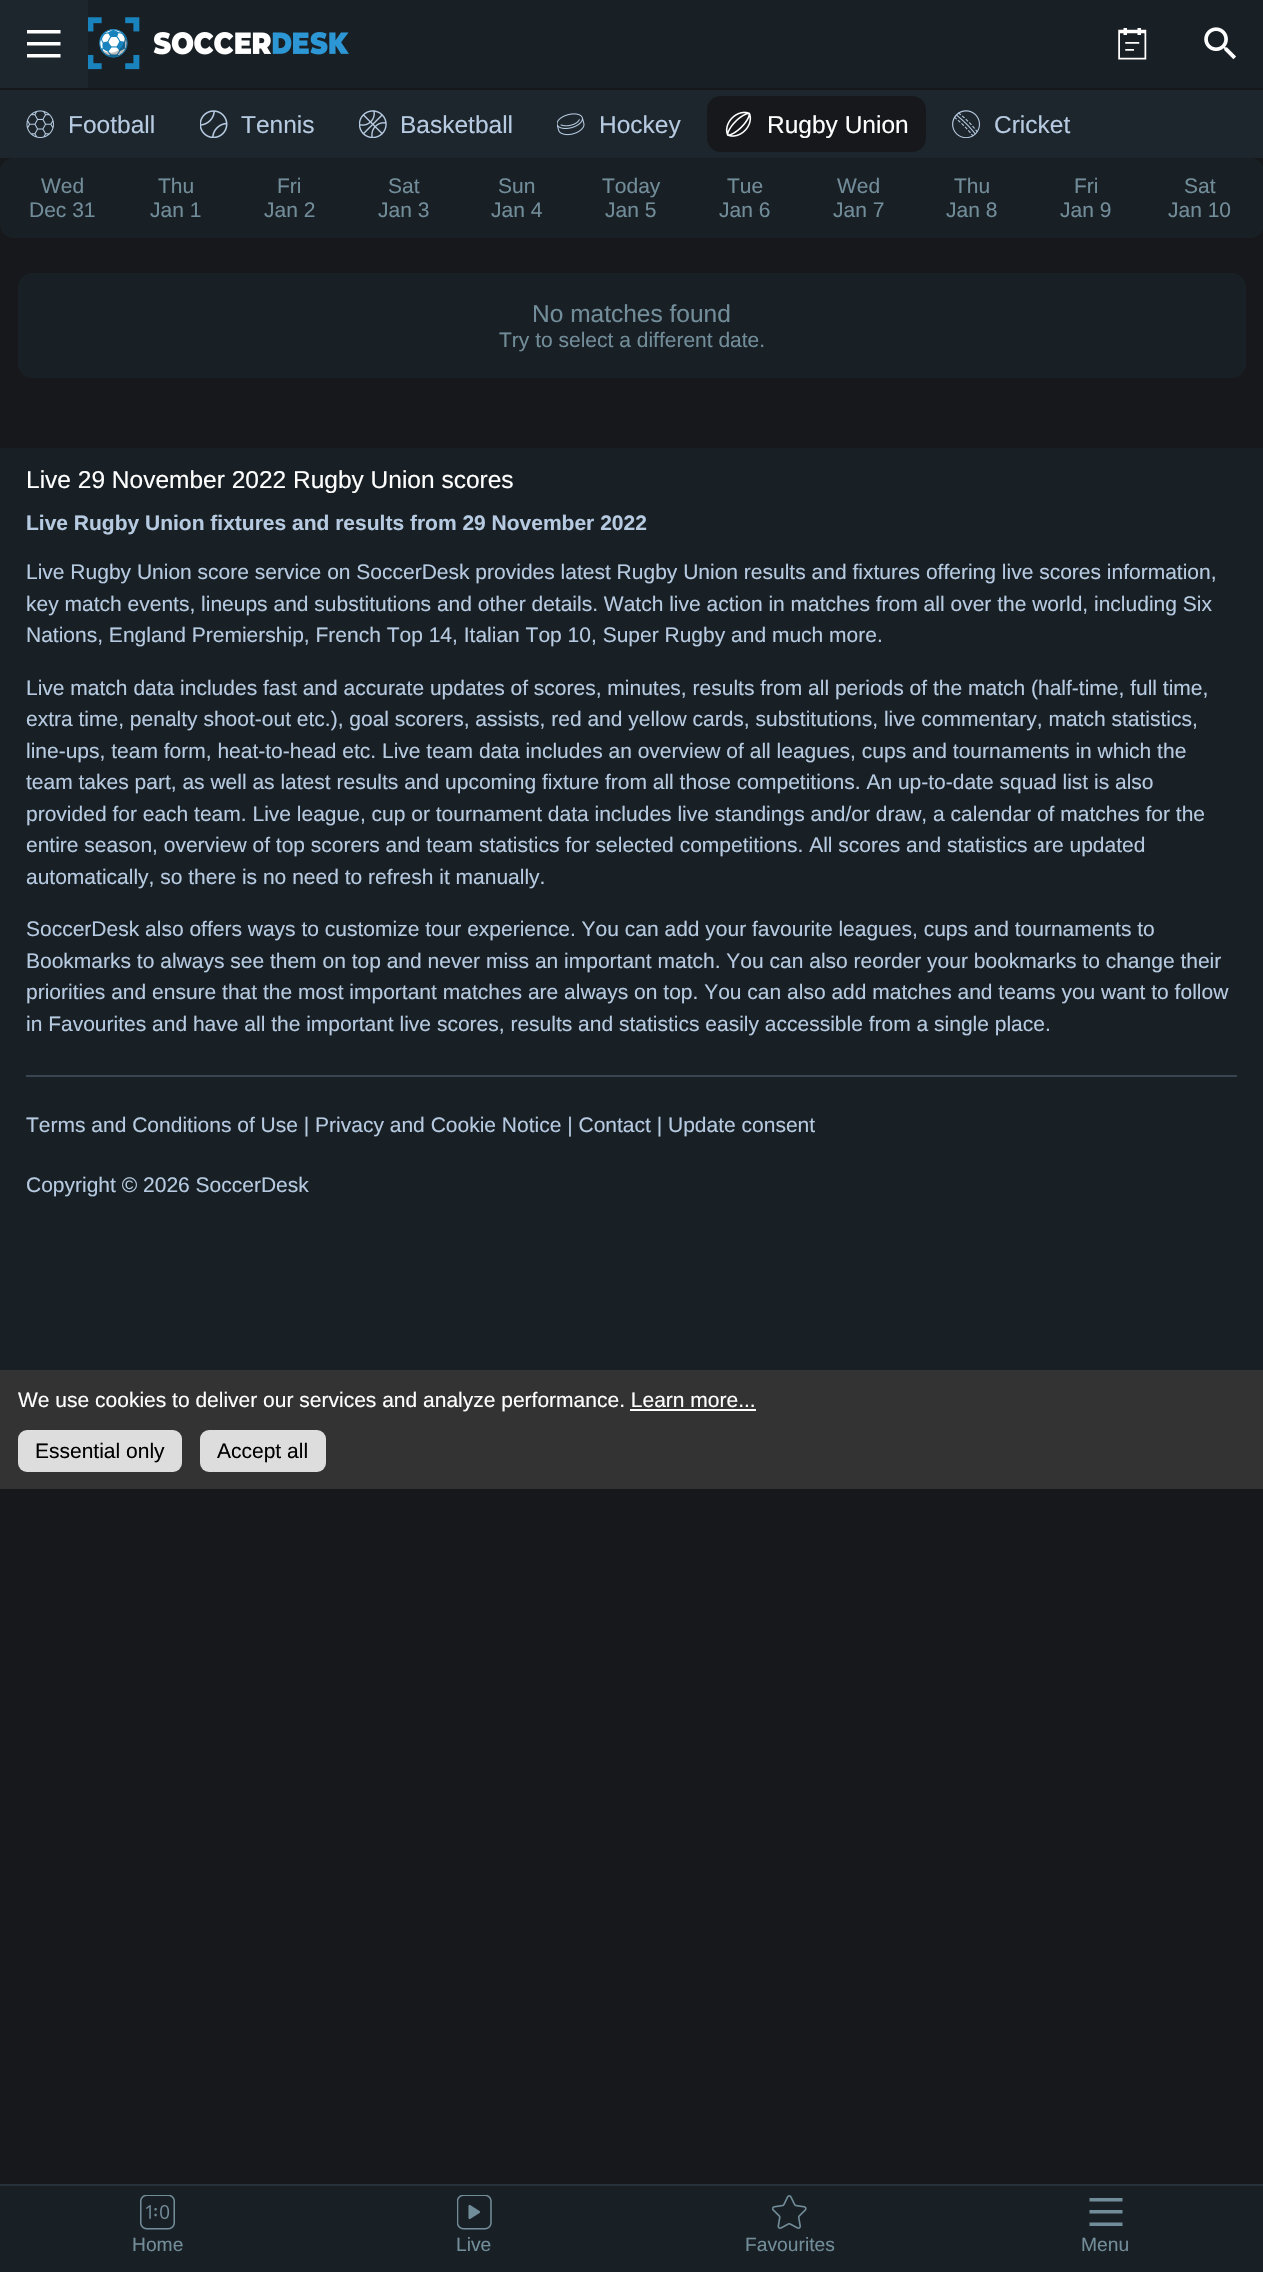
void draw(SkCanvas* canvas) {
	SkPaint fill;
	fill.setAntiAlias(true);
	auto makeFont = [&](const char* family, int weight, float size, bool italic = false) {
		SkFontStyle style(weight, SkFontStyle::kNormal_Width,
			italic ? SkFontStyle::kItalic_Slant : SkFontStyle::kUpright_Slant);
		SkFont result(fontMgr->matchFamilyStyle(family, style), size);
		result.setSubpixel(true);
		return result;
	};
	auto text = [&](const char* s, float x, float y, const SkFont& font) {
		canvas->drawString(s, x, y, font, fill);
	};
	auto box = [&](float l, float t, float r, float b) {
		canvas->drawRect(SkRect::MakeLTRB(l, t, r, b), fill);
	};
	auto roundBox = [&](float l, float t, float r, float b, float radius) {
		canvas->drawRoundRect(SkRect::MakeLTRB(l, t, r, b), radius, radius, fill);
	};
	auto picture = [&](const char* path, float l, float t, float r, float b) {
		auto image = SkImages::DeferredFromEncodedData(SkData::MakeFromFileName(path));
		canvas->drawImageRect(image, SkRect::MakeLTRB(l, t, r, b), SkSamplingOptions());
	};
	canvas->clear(0xFF16181B);
	fill.setColor(0xFF1D262C);
	box(0, 0, 88, 88);
	fill.setColor(0xFFFFFFFF);
	canvas->drawPath(SkPathBuilder().moveTo(27, 30).lineTo(27, 33.5f).lineTo(60.5f, 33.5f).lineTo(60.5f, 30).close().moveTo(27, 42).lineTo(27, 45.5f).lineTo(60.5f, 45.5f).lineTo(60.5f, 42).close().moveTo(27, 54).lineTo(27, 57.5f).lineTo(60.5f, 57.5f).lineTo(60.5f, 54).close().detach(), fill);
	fill.setColor(0xFF192025);
	box(88, 0, 1263, 88);
	picture("image0.png", 88, 17, 349, 70);
	picture("image1.png", 1204, 27, 1236, 60);
	fill.setColor(0xFF1D262C);
	box(0, 90, 1263, 158);
	picture("image2.png", 26, 110, 54, 138);
	picture("image3.png", 200, 110, 228, 138);
	picture("image4.png", 359, 110, 387, 138);
	picture("image5.png", 557, 113, 585, 136);
	fill.setColor(0xFF16181B);
	roundBox(707, 96, 926, 152, 14);
	picture("image6.png", 725, 111, 752, 137);
	picture("image7.png", 952, 110, 980, 138);
	fill.setColor(0xFF192025);
	roundBox(0, 158, 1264, 238, 14);
	picture("image8.png", 1118, 28, 1147, 60);
	canvas->drawPath(SkPathBuilder().moveTo(32, 273).lineTo(1232, 273).cubicTo(1239.5f, 273, 1246, 279.5f, 1246, 287).lineTo(1246, 327).lineTo(18, 327).lineTo(18, 287).cubicTo(18, 279.5f, 24.5f, 273, 32, 273).close().detach(), fill);
	canvas->drawPath(SkPathBuilder().moveTo(18, 327).lineTo(1246, 327).lineTo(1246, 364).cubicTo(1246, 371.5f, 1239.5f, 378, 1232, 378).lineTo(32, 378).cubicTo(24.5f, 378, 18, 371.5f, 18, 364).close().detach(), fill);
	box(0, 448, 1263, 1370);
	fill.setColor(0xFF394550);
	box(26, 1075, 1237, 1077);
	fill.setColor(0xFF333333);
	box(0, 1370, 1263, 1489);
	fill.setColor(0xFFFFFFFF);
	box(630, 1409, 756, 1411);
	fill.setColor(0xFFDDDDDD);
	roundBox(18, 1430, 182, 1472, 9);
	roundBox(200, 1430, 326, 1472, 9);
	fill.setColor(0xFF192025);
	box(0, 2186, 1263, 2272);
	fill.setColor(0xFF26313A);
	box(0, 2184, 1263, 2186);
	picture("image9.png", 140, 2195, 175, 2230);
	picture("image10.png", 457, 2195, 492, 2230);
	picture("image11.png", 772, 2195, 807, 2229);
	fill.setColor(0xFF728D9A);
	canvas->drawPath(SkPathBuilder().moveTo(1089.5f, 2198).lineTo(1089.5f, 2201.5f).lineTo(1122.5f, 2201.5f).lineTo(1122.5f, 2198).close().moveTo(1089.5f, 2210).lineTo(1089.5f, 2213.5f).lineTo(1122.5f, 2213.5f).lineTo(1122.5f, 2210).close().moveTo(1089.5f, 2222.5f).lineTo(1089.5f, 2226).lineTo(1122.5f, 2226).lineTo(1122.5f, 2222.5f).close().detach(), fill);
	auto font1 = makeFont("Liberation Sans", 400, 24.5f);
	fill.setColor(0xFFB6CAE1);
	text("Football", 68, 133, font1);
	text("Tennis", 241, 133, font1);
	text("Basketball", 400, 133, font1);
	text("Hockey", 599, 133, font1);
	fill.setColor(0xFFFFFFFF);
	text("Rugby Union", 767, 133, font1);
	fill.setColor(0xFFB6CAE1);
	text("Cricket", 994, 133, font1);
	auto font2 = makeFont("Liberation Sans", 400, 21);
	fill.setColor(0xFF728D9A);
	text("Wed", 41, 193, font2);
	text("Dec 31", 29, 217, font2);
	text("Thu", 158, 193, font2);
	text("Jan 1", 150, 217, font2);
	text("Fri", 277, 193, font2);
	text("Jan 2", 264, 217, font2);
	text("Sat", 388, 193, font2);
	text("Jan 3", 378, 217, font2);
	text("Sun", 498, 193, font2);
	text("Jan 4", 491, 217, font2);
	text("Today", 602, 193, font2);
	text("Jan 5", 605, 217, font2);
	text("Tue", 727, 193, font2);
	text("Jan 6", 719, 217, font2);
	text("Wed", 837, 193, font2);
	text("Jan 7", 833, 217, font2);
	text("Thu", 954, 193, font2);
	text("Jan 8", 946, 217, font2);
	text("Fri", 1074, 193, font2);
	text("Jan 9", 1060, 217, font2);
	text("Sat", 1184, 193, font2);
	text("Jan 10", 1168, 217, font2);
	text("No matches found", 532, 322, font1);
	text("Try to select a different date.", 499, 347, font2);
	fill.setColor(0xFFFFFFFF);
	text("Live 29 November 2022 Rugby Union scores", 26, 488, font1);
	auto font3 = makeFont("Liberation Sans", 700, 21);
	fill.setColor(0xFFB6CAE1);
	text("Live Rugby Union fixtures and results from 29 November 2022", 26, 530, font3);
	text("Live Rugby Union score service on SoccerDesk provides latest Rugby Union results and fixtures offering live scores information,", 26, 579, font2);
	text("key match events, lineups and substitutions and other details. Watch live action in matches from all over the world, including Six", 26, 611, font2);
	text("Nations, England Premiership, French Top 14, Italian Top 10, Super Rugby and much more.", 26, 642, font2);
	text("Live match data includes fast and accurate updates of scores, minutes, results from all periods of the match (half-time, full time,", 26, 695, font2);
	text("extra time, penalty shoot-out etc.), goal scorers, assists, red and yellow cards, substitutions, live commentary, match statistics,", 26, 726, font2);
	text("line-ups, team form, heat-to-head etc. Live team data includes an overview of all leagues, cups and tournaments in which the", 26, 758, font2);
	text("team takes part, as well as latest results and upcoming fixture from all those competitions. An up-to-date squad list is also", 26, 789, font2);
	text("provided for each team. Live league, cup or tournament data includes live standings and/or draw, a calendar of matches for the", 26, 821, font2);
	text("entire season, overview of top scorers and team statistics for selected competitions. All scores and statistics are updated", 26, 852, font2);
	text("automatically, so there is no need to refresh it manually.", 26, 884, font2);
	text("SoccerDesk also offers ways to customize tour experience. You can add your favourite leagues, cups and tournaments to", 26, 936, font2);
	text("Bookmarks to always see them on top and never miss an important match. You can also reorder your bookmarks to change their", 26, 968, font2);
	text("priorities and ensure that the most important matches are always on top. You can also add matches and teams you want to follow", 26, 999, font2);
	text("in Favourites and have all the important live scores, results and statistics easily accessible from a single place.", 26, 1031, font2);
	text("Terms and Conditions of Use | Privacy and Cookie Notice | Contact | Update consent", 26, 1132, font2);
	text("Copyright © 2026 SoccerDesk", 26, 1192, font2);
	fill.setColor(0xFFFFFFFF);
	text("We use cookies to deliver our services and analyze performance. Learn more...", 18, 1407, font2);
	fill.setColor(0xFF000000);
	text("Essential only", 35, 1458, font2);
	text("Accept all", 217, 1458, font2);
	auto font4 = makeFont("Liberation Sans", 400, 19.25f);
	fill.setColor(0xFF728D9A);
	text("Home", 132, 2251, font4);
	text("Live", 456, 2251, font4);
	text("Favourites", 745, 2251, font4);
	text("Menu", 1081, 2251, font4);
}
